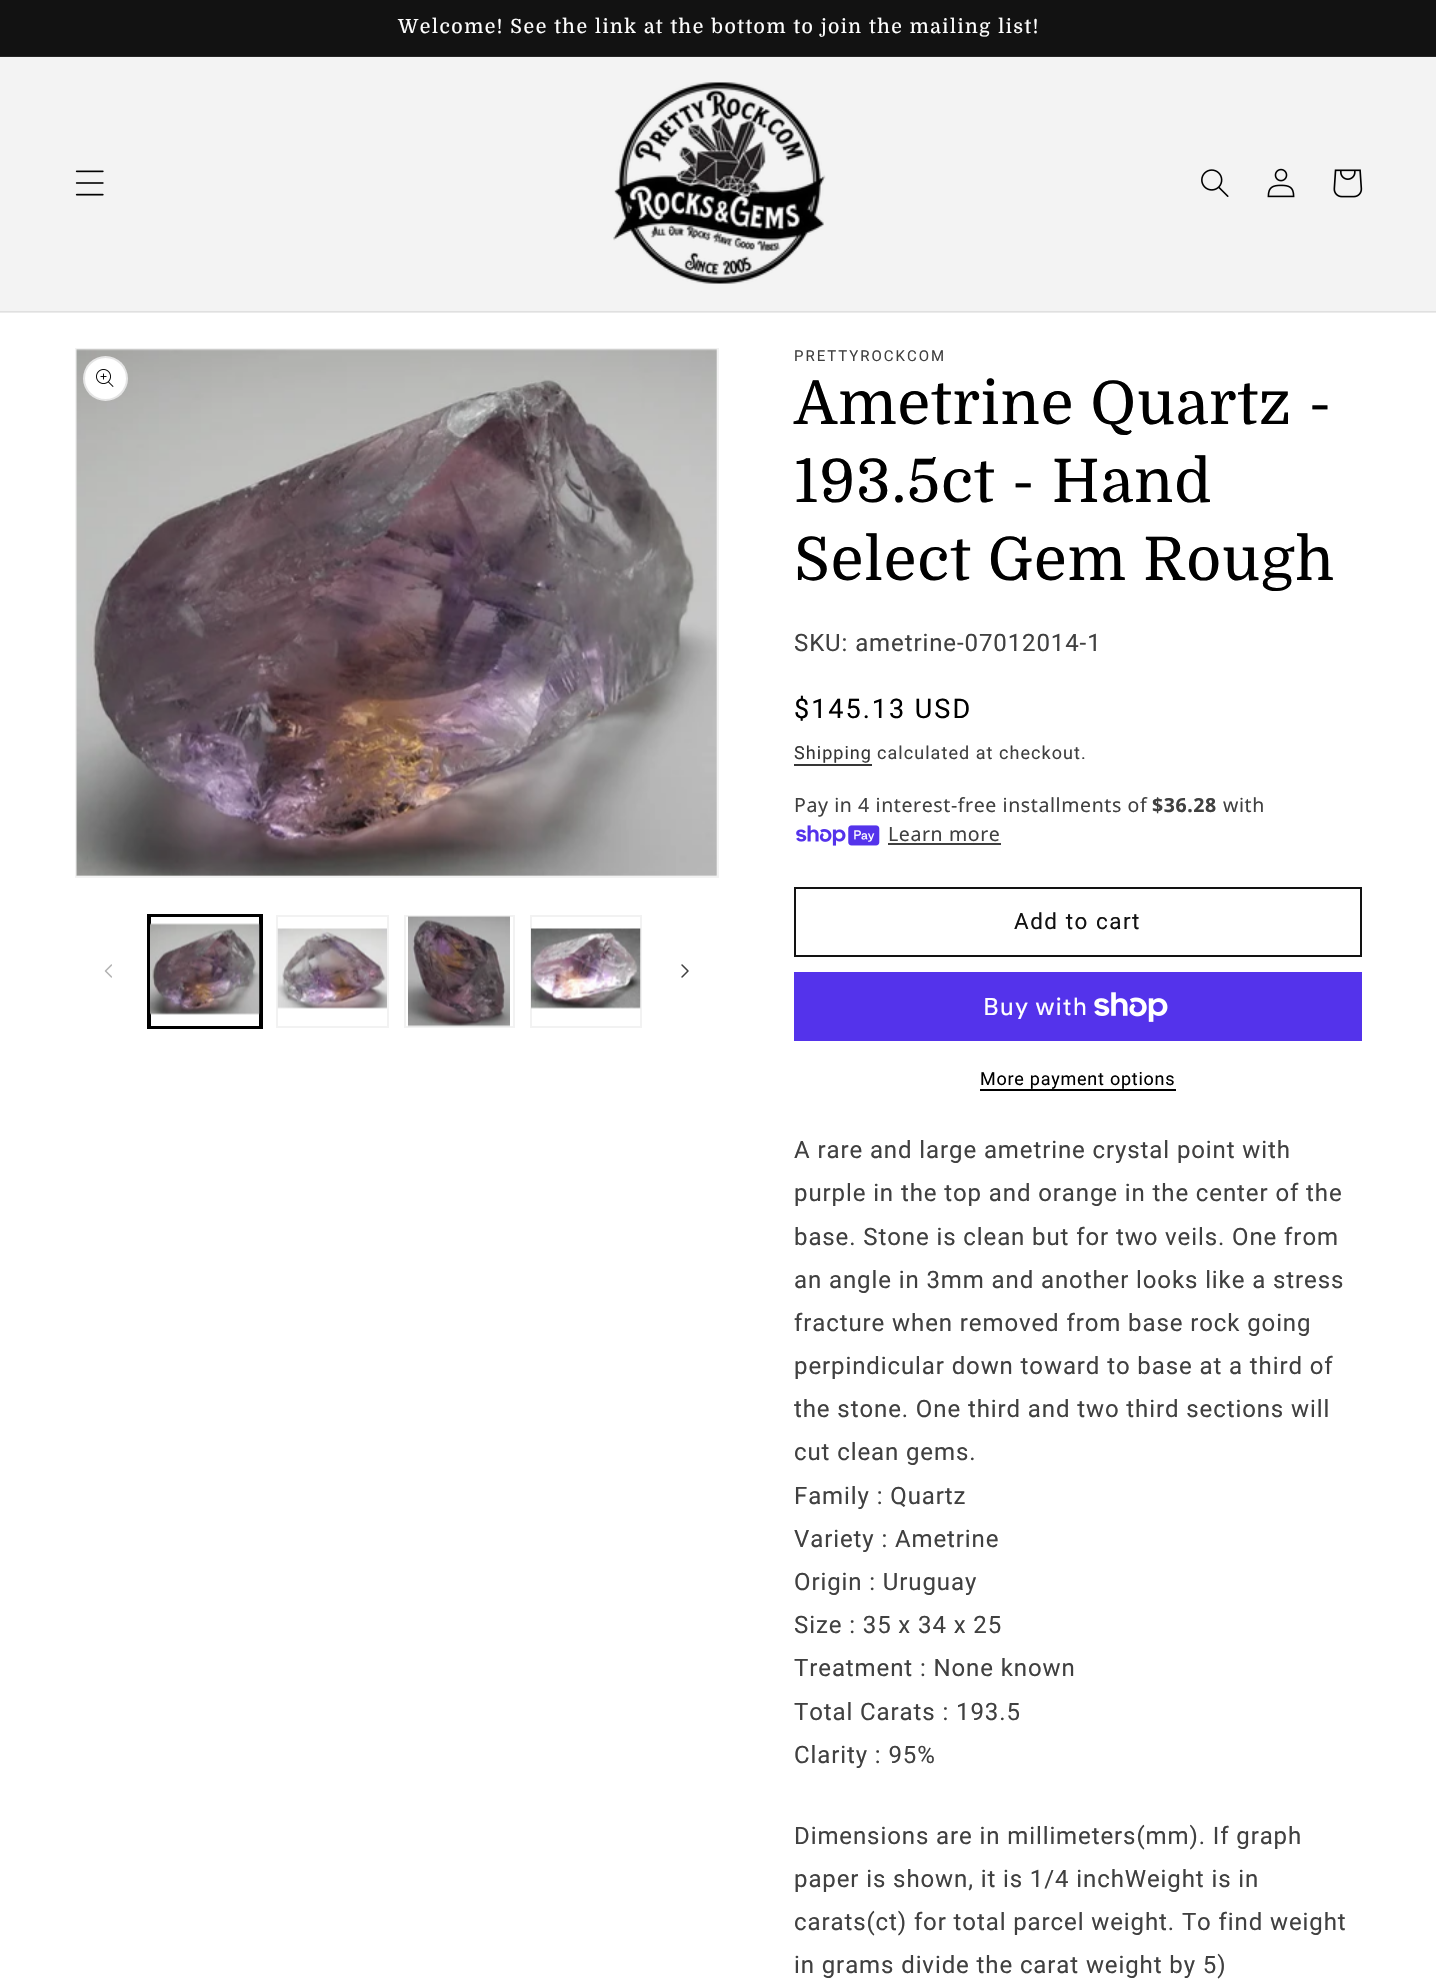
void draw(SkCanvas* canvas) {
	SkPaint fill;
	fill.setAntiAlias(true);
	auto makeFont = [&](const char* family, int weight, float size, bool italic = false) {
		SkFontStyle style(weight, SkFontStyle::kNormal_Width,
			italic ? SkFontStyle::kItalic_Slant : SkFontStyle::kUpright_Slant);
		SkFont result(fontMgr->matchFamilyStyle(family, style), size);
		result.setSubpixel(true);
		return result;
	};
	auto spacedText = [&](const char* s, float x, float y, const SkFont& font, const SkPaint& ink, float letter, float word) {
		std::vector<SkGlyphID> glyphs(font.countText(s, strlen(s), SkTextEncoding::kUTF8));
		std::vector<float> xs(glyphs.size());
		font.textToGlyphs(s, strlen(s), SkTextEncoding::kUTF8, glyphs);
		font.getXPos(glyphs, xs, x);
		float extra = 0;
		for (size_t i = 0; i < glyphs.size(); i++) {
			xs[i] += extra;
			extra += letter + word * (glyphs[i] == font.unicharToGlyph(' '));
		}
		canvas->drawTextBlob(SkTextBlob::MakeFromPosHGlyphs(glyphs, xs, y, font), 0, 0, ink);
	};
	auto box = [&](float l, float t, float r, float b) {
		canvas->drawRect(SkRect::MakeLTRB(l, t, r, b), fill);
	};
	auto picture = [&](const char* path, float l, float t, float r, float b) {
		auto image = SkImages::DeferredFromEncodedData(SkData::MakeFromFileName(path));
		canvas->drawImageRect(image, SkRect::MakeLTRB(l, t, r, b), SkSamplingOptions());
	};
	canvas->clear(0xFFFFFFFF);
	fill.setColor(0xFFEBEBEB);
	box(0, 312, 1436, 313);
	fill.setColor(0xFF121212);
	box(0, 0, 1436, 56);
	fill.setColor(0xFF252525);
	box(0, 56, 1436, 57);
	fill.setColor(0xFFF3F3F3);
	box(0, 58, 1436, 311);
	fill.setColor(0xFFF4F4F4);
	box(0, 57, 1436, 58);
	fill.setColor(0xFFE0E0E0);
	box(0, 311, 1436, 312);
	picture("image0.png", 75, 170, 104, 196);
	picture("image1.png", 613, 82, 826, 284);
	picture("image2.png", 1201, 169, 1229, 197);
	picture("image3.png", 1267, 168, 1295, 198);
	picture("image4.png", 1333, 169, 1363, 198);
	fill.setStyle(SkPaint::kStroke_Style);
	fill.setStrokeWidth(2);
	fill.setColor(0xFFF2F2F2);
	canvas->drawRect(SkRect::MakeLTRB(76, 349, 718, 877), fill);
	picture("image5.png", 76, 349, 717, 876);
	fill.setStyle(SkPaint::kFill_Style);
	fill.setColor(0xFFFFFFFF);
	canvas->drawCircle(105.5f, 378.5f, 22.5f, fill);
	fill.setStyle(SkPaint::kStroke_Style);
	fill.setColor(0x1A000000);
	canvas->drawCircle(105.5f, 378.5f, 21.5f, fill);
	picture("image6.png", 96, 369, 114, 387);
	picture("image7.png", 104, 964, 112, 978);
	fill.setColor(0xFF000000);
	canvas->drawRect(SkRect::MakeLTRB(148, 915, 262, 1028), fill);
	canvas->drawRect(SkRect::MakeLTRB(150, 916, 260, 1027), fill);
	picture("image8.png", 150, 923, 260, 1015);
	fill.setColor(0xFFF2F2F2);
	canvas->drawRect(SkRect::MakeLTRB(277, 916, 388, 1027), fill);
	picture("image9.png", 277, 928, 387, 1009);
	canvas->drawRect(SkRect::MakeLTRB(405, 916, 514, 1027), fill);
	picture("image10.png", 408, 916, 510, 1027);
	canvas->drawRect(SkRect::MakeLTRB(531, 916, 641, 1027), fill);
	picture("image11.png", 531, 928, 641, 1009);
	picture("image12.png", 681, 964, 689, 978);
	fill.setStyle(SkPaint::kFill_Style);
	fill.setColor(0xFF363636);
	box(794, 764, 872, 766);
	picture("image13.png", 796, 825, 880, 846);
	fill.setColor(0xFF404040);
	box(888, 843, 1001, 845);
	fill.setStyle(SkPaint::kStroke_Style);
	fill.setColor(0xFF121212);
	canvas->drawRect(SkRect::MakeLTRB(795, 888, 1361, 956), fill);
	fill.setStyle(SkPaint::kFill_Style);
	fill.setColor(0xFF5433EB);
	box(794, 972, 1362, 1041);
	picture("image14.png", 1094, 992, 1168, 1022);
	fill.setColor(0xFF000000);
	box(980, 1089, 1176, 1091);
	auto font1 = makeFont("Domine", 400, 19.5f);
	fill.setColor(0xFFFFFFFF);
	spacedText("Welcome! See the link at the bottom to join the mailing list!", 398, 33, font1, fill, 1.5f, 0);
	auto font2 = makeFont("Roboto", 400, 15);
	fill.setColor(0xFF404040);
	spacedText("PRETTYROCKCOM", 794, 361, font2, fill, 2, 0);
	auto font3 = makeFont("Domine", 400, 60);
	fill.setColor(0xFF000000);
	spacedText("Ametrine Quartz -", 794, 424, font3, fill, 0.9f, 0);
	spacedText("193.5ct - Hand", 794, 502, font3, fill, 0.9f, 0);
	spacedText("Select Gem Rough", 794, 580, font3, fill, 0.9f, 0);
	auto font4 = makeFont("Roboto", 400, 24);
	fill.setColor(0xFF404040);
	spacedText("SKU: ametrine-07012014-1", 794, 651, font4, fill, 0.9f, 0);
	auto font5 = makeFont("Roboto", 400, 27);
	fill.setColor(0xFF000000);
	spacedText("$145.13 USD", 794, 718, font5, fill, 2, 0);
	auto font6 = makeFont("Roboto", 400, 18);
	fill.setColor(0xFF363636);
	spacedText("Shipping", 794, 759, font6, fill, 1.05f, 0);
	fill.setColor(0xFF404040);
	spacedText("calculated at checkout.", 877, 759, font6, fill, 1.05f, 0);
	auto font7 = makeFont("Noto Sans", 400, 19.5f);
	spacedText("Pay in 4 interest-free installments of", 794, 812, font7, fill, 0.6f, 0);
	auto font8 = makeFont("Noto Sans", 700, 19.5f);
	spacedText("$36.28", 1152, 812, font8, fill, 0.6f, 0);
	spacedText("with", 1223, 812, font7, fill, 0.6f, 0);
	spacedText("Learn more", 888, 841, font7, fill, 0.6f, 0);
	auto font9 = makeFont("Roboto", 400, 22.5f);
	fill.setColor(0xFF121212);
	spacedText("Add to cart", 1014, 929, font9, fill, 1.5f, 0);
	auto font10 = makeFont("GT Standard", 400, 24);
	fill.setColor(0xFFFFFFFF);
	spacedText("Buy with", 983, 1015, font10, fill, 0.9f, 0);
	fill.setColor(0xFF000000);
	spacedText("More payment options", 980, 1085, font6, fill, 0.75f, 0);
	fill.setColor(0xFF404040);
	spacedText("A rare and large ametrine crystal point with", 794, 1158, font4, fill, 0.9f, 0);
	spacedText("purple in the top and orange in the center of the", 794, 1201, font4, fill, 0.9f, 0);
	spacedText("base. Stone is clean but for two veils. One from", 794, 1245, font4, fill, 0.9f, 0);
	spacedText("an angle in 3mm and another looks like a stress", 794, 1288, font4, fill, 0.9f, 0);
	spacedText("fracture when removed from base rock going", 794, 1331, font4, fill, 0.9f, 0);
	spacedText("perpindicular down toward to base at a third of", 794, 1374, font4, fill, 0.9f, 0);
	spacedText("the stone. One third and two third sections will", 794, 1417, font4, fill, 0.9f, 0);
	spacedText("cut clean gems.", 794, 1460, font4, fill, 0.9f, 0);
	spacedText("Family : Quartz", 794, 1504, font4, fill, 0.9f, 0);
	spacedText("Variety : Ametrine", 794, 1547, font4, fill, 0.9f, 0);
	spacedText("Origin : Uruguay", 794, 1590, font4, fill, 0.9f, 0);
	spacedText("Size : 35 x 34 x 25", 794, 1633, font4, fill, 0.9f, 0);
	spacedText("Treatment : None known", 794, 1676, font4, fill, 0.9f, 0);
	spacedText("Total Carats : 193.5", 794, 1720, font4, fill, 0.9f, 0);
	spacedText("Clarity : 95%", 794, 1763, font4, fill, 0.9f, 0);
	spacedText("Dimensions are in millimeters(mm). If graph", 794, 1844, font4, fill, 0.9f, 0);
	spacedText("paper is shown, it is 1/4 inchWeight is in", 794, 1887, font4, fill, 0.9f, 0);
	spacedText("carats(ct) for total parcel weight. To find weight", 794, 1930, font4, fill, 0.9f, 0);
	spacedText("in grams divide the carat weight by 5)", 794, 1973, font4, fill, 0.9f, 0);
}
